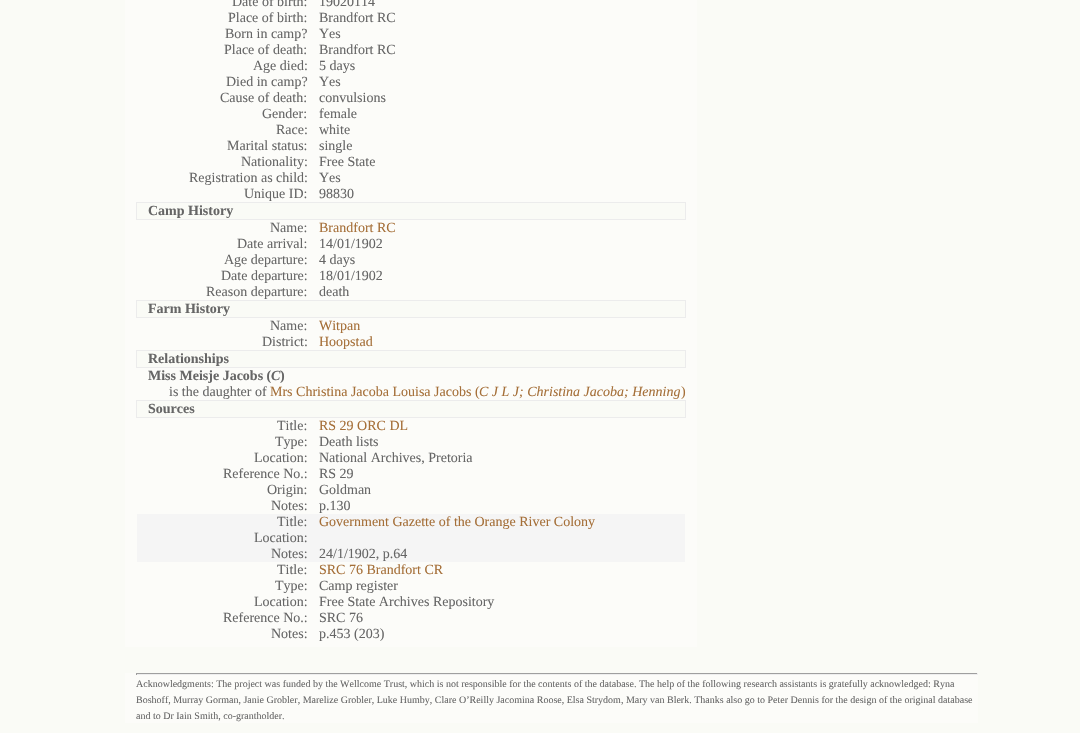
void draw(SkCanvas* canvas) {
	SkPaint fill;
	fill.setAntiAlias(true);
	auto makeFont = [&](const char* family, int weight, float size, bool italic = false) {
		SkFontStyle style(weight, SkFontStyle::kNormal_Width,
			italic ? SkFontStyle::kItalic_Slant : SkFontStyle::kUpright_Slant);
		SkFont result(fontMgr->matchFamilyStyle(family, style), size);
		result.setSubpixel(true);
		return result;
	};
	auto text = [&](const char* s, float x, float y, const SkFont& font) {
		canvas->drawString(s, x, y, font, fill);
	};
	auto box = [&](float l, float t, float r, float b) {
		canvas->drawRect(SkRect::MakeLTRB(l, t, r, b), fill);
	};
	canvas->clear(0xFFFAFBF6);
	fill.setColor(0xFFFCFCF9);
	box(125, 0, 697, 647);
	fill.setColor(0xFFFAFBF6);
	box(137, 203, 685, 219);
	fill.setColor(0xFFECECEC);
	box(136, 202, 686, 203);
	box(685, 202, 686, 220);
	box(136, 219, 686, 220);
	box(136, 202, 137, 220);
	fill.setColor(0xFFFAFBF6);
	box(137, 301, 685, 317);
	fill.setColor(0xFFECECEC);
	box(136, 300, 686, 301);
	box(685, 300, 686, 318);
	box(136, 317, 686, 318);
	box(136, 300, 137, 318);
	fill.setColor(0xFFFAFBF6);
	box(137, 351, 685, 367);
	fill.setColor(0xFFECECEC);
	box(136, 350, 686, 351);
	box(685, 350, 686, 368);
	box(136, 367, 686, 368);
	box(136, 350, 137, 368);
	fill.setColor(0xFFFAFBF6);
	box(137, 401, 685, 417);
	fill.setColor(0xFFECECEC);
	box(136, 400, 686, 401);
	box(685, 400, 686, 418);
	box(136, 417, 686, 418);
	box(136, 400, 137, 418);
	fill.setColor(0xFFF5F5F5);
	box(137, 514, 685, 562);
	fill.setColor(0xFFFCFCF9);
	box(125, 673, 978, 723);
	fill.setColor(0xFF9F9F9F);
	box(136, 673, 978, 674);
	fill.setColor(0xFFEEEEEE);
	box(977, 673, 978, 675);
	box(136, 674, 978, 675);
	fill.setColor(0xFF9F9F9F);
	box(136, 673, 137, 675);
	auto font1 = makeFont("Liberation Serif", 400, 14);
	fill.setColor(0xFF666666);
	text("Date of birth:", 232, 6, font1);
	text("19020114", 319, 6, font1);
	text("Place of birth:", 228, 22, font1);
	text("Brandfort RC", 319, 22, font1);
	text("Born in camp?", 225, 38, font1);
	text("Yes", 319, 38, font1);
	text("Place of death:", 224, 54, font1);
	text("Brandfort RC", 319, 54, font1);
	text("Age died:", 253, 70, font1);
	text("5 days", 319, 70, font1);
	text("Died in camp?", 226, 86, font1);
	text("Yes", 319, 86, font1);
	text("Cause of death:", 220, 102, font1);
	text("convulsions", 319, 102, font1);
	text("Gender:", 262, 118, font1);
	text("female", 319, 118, font1);
	text("Race:", 276, 134, font1);
	text("white", 319, 134, font1);
	text("Marital status:", 227, 150, font1);
	text("single", 319, 150, font1);
	text("Nationality:", 241, 166, font1);
	text("Free State", 319, 166, font1);
	text("Registration as child:", 189, 182, font1);
	text("Yes", 319, 182, font1);
	text("Unique ID:", 244, 198, font1);
	text("98830", 319, 198, font1);
	auto font2 = makeFont("Liberation Serif", 700, 14);
	text("Camp History", 148, 215, font2);
	text("Name:", 270, 232, font1);
	fill.setColor(0xFFA56F38);
	text("Brandfort RC", 319, 232, font1);
	fill.setColor(0xFF666666);
	text("Date arrival:", 237, 248, font1);
	text("14/01/1902", 319, 248, font1);
	text("Age departure:", 224, 264, font1);
	text("4 days", 319, 264, font1);
	text("Date departure:", 221, 280, font1);
	text("18/01/1902", 319, 280, font1);
	text("Reason departure:", 206, 296, font1);
	text("death", 319, 296, font1);
	text("Farm History", 148, 313, font2);
	text("Name:", 270, 330, font1);
	fill.setColor(0xFFA56F38);
	text("Witpan", 319, 330, font1);
	fill.setColor(0xFF666666);
	text("District:", 262, 346, font1);
	fill.setColor(0xFFA56F38);
	text("Hoopstad", 319, 346, font1);
	fill.setColor(0xFF666666);
	text("Relationships", 148, 363, font2);
	text("Miss Meisje Jacobs (", 148, 380, font2);
	auto font3 = makeFont("Liberation Serif", 700, 14, true);
	text("C", 271, 380, font3);
	text(")", 280, 380, font2);
	text("is the daughter of", 169, 396, font1);
	fill.setColor(0xFFA56F38);
	text("Mrs Christina Jacoba Louisa Jacobs (", 270, 396, font1);
	auto font4 = makeFont("Liberation Serif", 400, 14, true);
	text("C J L J; Christina Jacoba; Henning", 479, 396, font4);
	text(")", 681, 396, font1);
	fill.setColor(0xFF666666);
	text("Sources", 148, 413, font2);
	text("Title:", 277, 430, font1);
	fill.setColor(0xFFA56F38);
	text("RS 29 ORC DL", 319, 430, font1);
	fill.setColor(0xFF666666);
	text("Type:", 275, 446, font1);
	text("Death lists", 319, 446, font1);
	text("Location:", 254, 462, font1);
	text("National Archives, Pretoria", 319, 462, font1);
	text("Reference No.:", 223, 478, font1);
	text("RS 29", 319, 478, font1);
	text("Origin:", 267, 494, font1);
	text("Goldman", 319, 494, font1);
	text("Notes:", 271, 510, font1);
	text("p.130", 319, 510, font1);
	text("Title:", 277, 526, font1);
	fill.setColor(0xFFA56F38);
	text("Government Gazette of the Orange River Colony", 319, 526, font1);
	fill.setColor(0xFF666666);
	text("Location:", 254, 542, font1);
	text("Notes:", 271, 558, font1);
	text("24/1/1902, p.64", 319, 558, font1);
	text("Title:", 277, 574, font1);
	fill.setColor(0xFFA56F38);
	text("SRC 76 Brandfort CR", 319, 574, font1);
	fill.setColor(0xFF666666);
	text("Type:", 275, 590, font1);
	text("Camp register", 319, 590, font1);
	text("Location:", 254, 606, font1);
	text("Free State Archives Repository", 319, 606, font1);
	text("Reference No.:", 223, 622, font1);
	text("SRC 76", 319, 622, font1);
	text("Notes:", 271, 638, font1);
	text("p.453 (203)", 319, 638, font1);
	auto font5 = makeFont("Liberation Serif", 400, 10);
	text("Acknowledgments: The project was funded by the Wellcome Trust, which is not responsible for the contents of the database. The help of the following research assistants is gratefully acknowledged: Ryna", 136, 687, font5);
	text("Boshoff, Murray Gorman, Janie Grobler, Marelize Grobler, Luke Humby, Clare O’Reilly Jacomina Roose, Elsa Strydom, Mary van Blerk. Thanks also go to Peter Dennis for the design of the original database", 136, 703, font5);
	text("and to Dr Iain Smith, co-grantholder.", 136, 719, font5);
}
